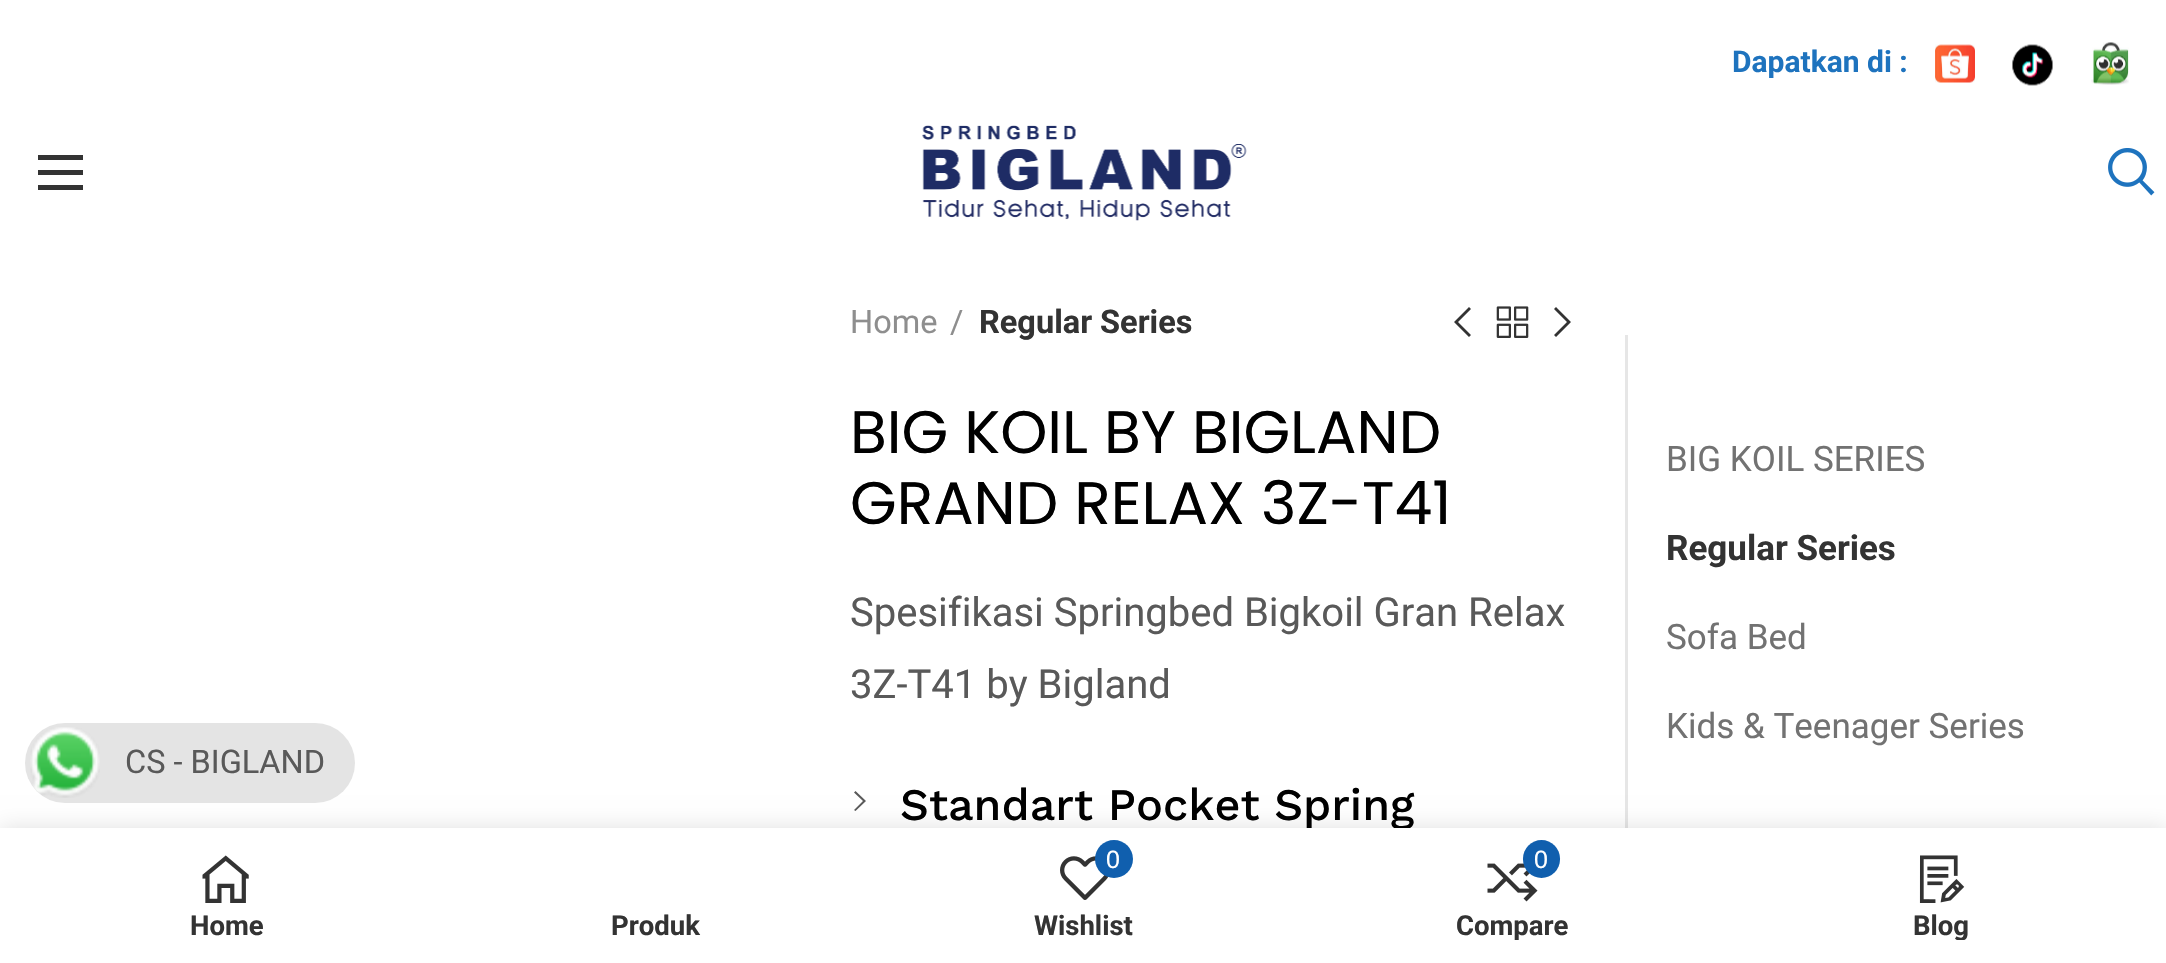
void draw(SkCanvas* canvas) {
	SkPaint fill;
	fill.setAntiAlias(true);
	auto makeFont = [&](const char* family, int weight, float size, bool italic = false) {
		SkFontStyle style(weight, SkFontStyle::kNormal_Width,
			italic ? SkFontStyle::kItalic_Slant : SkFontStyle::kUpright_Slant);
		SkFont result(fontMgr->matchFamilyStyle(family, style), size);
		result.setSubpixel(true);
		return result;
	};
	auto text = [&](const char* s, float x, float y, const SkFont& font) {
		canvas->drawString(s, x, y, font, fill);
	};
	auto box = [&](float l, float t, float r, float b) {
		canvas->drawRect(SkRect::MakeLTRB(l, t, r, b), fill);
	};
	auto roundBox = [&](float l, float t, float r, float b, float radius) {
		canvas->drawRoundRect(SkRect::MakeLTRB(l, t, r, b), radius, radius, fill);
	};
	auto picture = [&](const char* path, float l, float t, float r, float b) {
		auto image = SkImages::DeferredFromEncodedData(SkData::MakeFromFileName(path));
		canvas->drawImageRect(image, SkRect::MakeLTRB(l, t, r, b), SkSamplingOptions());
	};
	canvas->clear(0xFFFFFFFF);
	fill.setColor(0xFF595959);
	canvas->drawPath(SkPathBuilder().moveTo(855.5f, 791).lineTo(866, 801).lineTo(855.5f, 811).lineTo(854, 810).lineTo(863, 801).lineTo(854, 792.5f).close().detach(), fill);
	fill.setColor(0xFFE6E6E6);
	box(1625, 335, 1628, 828);
	fill.setColor(0x1F000000);
	fill.setMaskFilter(SkMaskFilter::MakeBlur(kNormal_SkBlurStyle, 11));
	canvas->drawRect(SkRect::MakeLTRB(0, 828, 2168, 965), fill);
	fill.setMaskFilter(nullptr);
	fill.setColor(0xFFE4E4E4);
	roundBox(25, 723, 355, 803, 40);
	picture("image0.png", 30, 727, 100, 798);
	picture("image1.png", 1935, 44, 1975, 83);
	picture("image2.png", 2012, 44, 2053, 86);
	picture("image3.png", 2091, 42, 2129, 85);
	fill.setColor(0xFF333333);
	box(38, 170, 83, 175);
	box(38, 155, 83, 160);
	box(38, 185, 83, 190);
	picture("image4.png", 922, 125, 1247, 221);
	picture("image5.png", 2108, 148, 2155, 196);
	canvas->drawPath(SkPathBuilder().moveTo(1471, 309).lineTo(1458, 322).lineTo(1471, 335).lineTo(1469, 337).lineTo(1454, 322).lineTo(1469, 307).close().detach(), fill);
	picture("image6.png", 1496, 306, 1529, 338);
	canvas->drawPath(SkPathBuilder().moveTo(1556, 307).lineTo(1571, 322).lineTo(1556, 337).lineTo(1554, 335).lineTo(1567, 322).lineTo(1554, 309).close().detach(), fill);
	auto font1 = makeFont("Roboto", 400, 32.5f);
	fill.setColor(0xFF595959);
	text("CS - BIGLAND", 125, 773, font1);
	auto font2 = makeFont("Roboto", 700, 30);
	fill.setColor(0xFF1E73BE);
	text("Dapatkan di :", 1732, 72, font2);
	fill.setColor(0xFF8E8E8E);
	text("Home", 850, 333, font1);
	text("/", 950, 333, font1);
	auto font3 = makeFont("Roboto", 700, 32.5f);
	fill.setColor(0xFF333333);
	text("Regular Series", 979, 333, font3);
	auto font4 = makeFont("Poppins", 400, 60);
	fill.setColor(0xFF000000);
	text("BIG KOIL BY BIGLAND", 850, 453, font4);
	text("GRAND RELAX 3Z-T41", 850, 524, font4);
	auto font5 = makeFont("Roboto", 400, 40);
	fill.setColor(0xFF595959);
	text("Spesifikasi Springbed Bigkoil Gran Relax", 850, 626, font5);
	text("3Z-T41 by Bigland", 850, 698, font5);
	auto font6 = makeFont("Work Sans", 500, 45);
	fill.setColor(0xFF000000);
	text("Standart Pocket Spring", 900, 820, font6);
	auto font7 = makeFont("Roboto", 400, 35);
	fill.setColor(0xFF727272);
	text("BIG KOIL SERIES", 1666, 471, font7);
	auto font8 = makeFont("Roboto", 700, 35);
	fill.setColor(0xFF333333);
	text("Regular Series", 1666, 560, font8);
	fill.setColor(0xFF727272);
	text("Sofa Bed", 1666, 649, font7);
	text("Kids & Teenager Series", 1666, 738, font7);
	fill.setColor(0xFFFFFFFF);
	box(0, 828, 2166, 963);
	picture("image7.png", 202, 855, 249, 903);
	auto font9 = makeFont("Roboto", 700, 27.5f);
	fill.setColor(0xFF333333);
	text("Home", 190, 935, font9);
	text("Produk", 611, 935, font9);
	picture("image8.png", 1060, 856, 1108, 900);
	fill.setColor(0xFF105FAE);
	canvas->drawCircle(1114, 859, 19, fill);
	auto font10 = makeFont("Liberation Sans", 400, 25);
	fill.setColor(0xFFFFFFFF);
	text("0", 1106, 868, font10);
	fill.setColor(0xFF333333);
	text("Wishlist", 1034, 935, font9);
	picture("image9.png", 1487, 857, 1538, 902);
	fill.setColor(0xFF105FAE);
	roundBox(1523, 840, 1560, 878, 18.5f);
	fill.setColor(0xFFFFFFFF);
	text("0", 1534, 868, font10);
	canvas->save();
	canvas->clipRect(SkRect::MakeLTRB(1323, 913, 1703, 940));
	fill.setColor(0xFF333333);
	text("Compare", 1456, 935, font9);
	canvas->restore();
	picture("image10.png", 1919, 855, 1965, 903);
	canvas->save();
	canvas->clipRect(SkRect::MakeLTRB(1753, 913, 2130, 940));
	text("Blog", 1913, 935, font9);
	canvas->restore();
}
